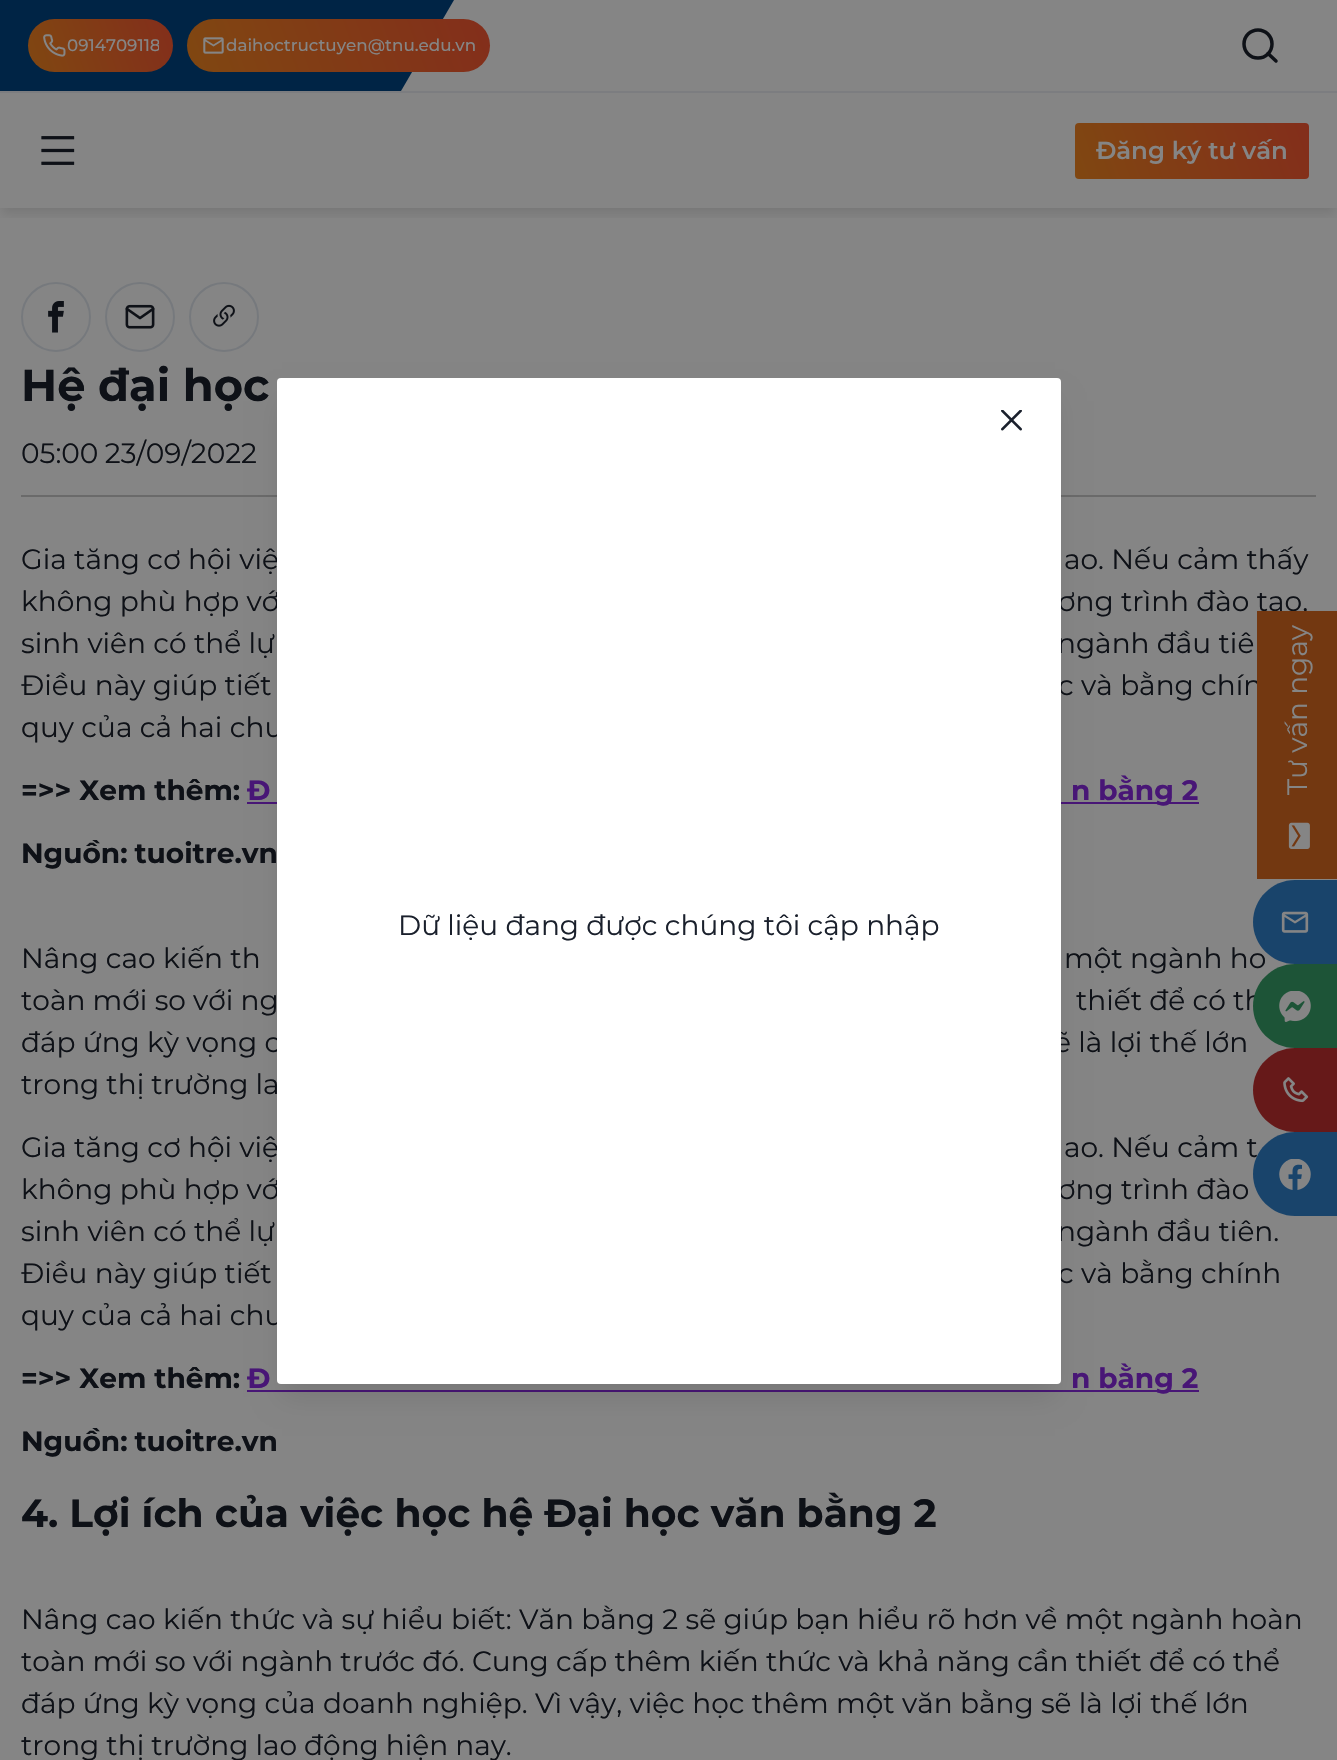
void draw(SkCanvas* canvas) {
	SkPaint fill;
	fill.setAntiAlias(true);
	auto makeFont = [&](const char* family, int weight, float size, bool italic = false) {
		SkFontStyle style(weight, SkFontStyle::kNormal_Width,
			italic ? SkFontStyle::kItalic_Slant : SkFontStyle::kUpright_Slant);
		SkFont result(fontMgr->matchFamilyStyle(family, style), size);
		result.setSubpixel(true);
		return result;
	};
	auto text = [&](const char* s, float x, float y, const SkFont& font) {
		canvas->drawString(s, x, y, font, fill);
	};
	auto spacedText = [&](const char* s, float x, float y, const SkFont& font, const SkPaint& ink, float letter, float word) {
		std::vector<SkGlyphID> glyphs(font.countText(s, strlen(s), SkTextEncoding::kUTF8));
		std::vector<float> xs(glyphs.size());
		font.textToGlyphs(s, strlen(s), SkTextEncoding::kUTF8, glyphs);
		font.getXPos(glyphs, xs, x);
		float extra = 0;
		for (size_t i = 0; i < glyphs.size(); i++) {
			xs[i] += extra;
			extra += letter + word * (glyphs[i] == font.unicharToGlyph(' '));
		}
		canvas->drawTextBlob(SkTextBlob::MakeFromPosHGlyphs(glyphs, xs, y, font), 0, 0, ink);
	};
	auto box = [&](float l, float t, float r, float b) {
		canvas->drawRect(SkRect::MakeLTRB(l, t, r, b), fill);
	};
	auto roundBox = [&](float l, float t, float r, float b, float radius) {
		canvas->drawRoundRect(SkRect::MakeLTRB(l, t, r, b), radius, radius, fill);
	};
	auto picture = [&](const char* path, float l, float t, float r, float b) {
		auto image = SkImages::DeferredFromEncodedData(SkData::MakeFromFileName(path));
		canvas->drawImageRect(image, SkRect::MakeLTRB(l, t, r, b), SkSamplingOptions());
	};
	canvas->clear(0xFF858585);
	{
		const SkColor colors[] = {0xFF002445, 0xFF0E2F36};
		const float stops[] = {0, 1};
		const SkPoint ends[] = {{-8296, 0}, {-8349, 91}};
		fill.setShader(SkGradientShader::MakeLinear(ends, colors, stops, 2, SkTileMode::kClamp));
		fill.setAlpha(255);
	}
	canvas->drawPath(SkPathBuilder().moveTo(-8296, 0).lineTo(454, 0).lineTo(401, 91).lineTo(-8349, 91).close().detach(), fill);
	{
		const SkColor colors[] = {0xFF804711, 0xFF832E1B};
		const float stops[] = {0, 1};
		const SkPoint ends[] = {{28, 72}, {173, 19}};
		fill.setShader(SkGradientShader::MakeLinear(ends, colors, stops, 2, SkTileMode::kClamp));
		fill.setAlpha(255);
	}
	roundBox(28, 19, 173, 72, 26.5f);
	picture("image0.png", 43, 34, 66, 57);
	{
		const SkColor colors[] = {0xFF804711, 0xFF832E1B};
		const float stops[] = {0, 1};
		const SkPoint ends[] = {{197, 97}, {481, -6.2f}};
		fill.setShader(SkGradientShader::MakeLinear(ends, colors, stops, 2, SkTileMode::kClamp));
		fill.setAlpha(255);
	}
	roundBox(187, 19, 490, 72, 26.5f);
	picture("image1.png", 203, 37, 224, 54);
	fill.setStyle(SkPaint::kStroke_Style);
	fill.setStrokeWidth(3.5f);
	fill.setShader(nullptr);
	fill.setColor(0xFF0E1117);
	canvas->drawCircle(1258, 44, 14, fill);
	fill.setStrokeCap(SkPaint::kRound_Cap);
	fill.setStrokeJoin(SkPaint::kRound_Join);
	canvas->drawPath(SkPathBuilder().moveTo(1276, 61).lineTo(1268, 53.5f).detach(), fill);
	fill.setStyle(SkPaint::kFill_Style);
	fill.setColor(0xFF7C7D80);
	box(0, 91, 1337, 93);
	canvas->save();
	canvas->clipRect(SkRect::MakeLTRB(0, 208, 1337, 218));
	fill.setColor(0x1A000000);
	fill.setMaskFilter(SkMaskFilter::MakeBlur(kNormal_SkBlurStyle, 5));
	canvas->drawRect(SkRect::MakeLTRB(2, 102, 1335, 214), fill);
	fill.setMaskFilter(nullptr);
	canvas->restore();
	picture("image2.png", 41, 136, 75, 165);
	{
		const SkColor colors[] = {0xFF804711, 0xFF832E1B};
		const float stops[] = {0, 1};
		const SkPoint ends[] = {{1079, 191}, {1304, 110}};
		fill.setShader(SkGradientShader::MakeLinear(ends, colors, stops, 2, SkTileMode::kClamp));
		fill.setAlpha(255);
	}
	roundBox(1075, 123, 1309, 179, 4);
	fill.setStyle(SkPaint::kStroke_Style);
	fill.setStrokeWidth(2);
	fill.setStrokeCap(SkPaint::kButt_Cap);
	fill.setStrokeJoin(SkPaint::kMiter_Join);
	fill.setShader(nullptr);
	fill.setColor(0xFF76797D);
	canvas->drawCircle(56, 317, 34, fill);
	picture("image3.png", 48, 301, 64, 333);
	canvas->drawCircle(140, 317, 34, fill);
	picture("image4.png", 125, 304, 155, 329);
	canvas->drawCircle(224, 317, 34, fill);
	picture("image5.png", 213, 304, 235, 327);
	fill.setStyle(SkPaint::kFill_Style);
	fill.setColor(0xFF6A6A6A);
	box(21, 495, 1316, 497);
	fill.setColor(0xFF481676);
	box(247, 802, 1199, 804);
	box(247, 1390, 1199, 1392);
	fill.setColor(0xFF661919);
	canvas->drawPath(SkPathBuilder().moveTo(1295, 1048).lineTo(1337, 1048).lineTo(1337, 1132).lineTo(1295, 1132).cubicTo(1272, 1132, 1253, 1113, 1253, 1090).cubicTo(1253, 1067, 1272, 1048, 1295, 1048).close().detach(), fill);
	picture("image9.png", 1283, 1077, 1309, 1103);
	fill.setColor(0x1A000000);
	fill.setMaskFilter(SkMaskFilter::MakeBlur(kNormal_SkBlurStyle, 13));
	canvas->drawRect(SkRect::MakeLTRB(282, 401, 1055, 1397), fill);
	fill.setMaskFilter(nullptr);
	canvas->save();
	canvas->clipRect(SkRect::MakeLTRB(67, 35, 159, 56));
	auto font1 = makeFont("Montserrat", 500, 16.75f);
	fill.setColor(0xFF858585);
	text("0914709118", 67, 51, font1);
	canvas->restore();
	text("daihoctructuyen@tnu.edu.vn", 226, 51, font1);
	auto font2 = makeFont("Montserrat", 600, 24.5f);
	text("Đăng ký tư vấn", 1096, 159, font2);
	auto font3 = makeFont("Montserrat", 700, 44.75f);
	fill.setColor(0xFF0E1117);
	text("Hệ đại học", 21, 401, font3);
	auto font4 = makeFont("Montserrat", 400, 28);
	spacedText("05:00 23/09/2022", 21, 463, font4, fill, 0, -1);
	text("Gia tăng cơ hội việ", 21, 569, font4);
	text("ao. Nếu cảm thấy", 1064, 569, font4);
	text("không phù hợp vớ", 21, 611, font4);
	text("ơng trình đào tạo,", 1058, 611, font4);
	text("sinh viên có thể lự", 21, 653, font4);
	text("ngành đầu tiê", 1057, 653, font4);
	text("Điều này giúp tiết", 21, 695, font4);
	text("c và bằng chín", 1058, 695, font4);
	text("quy của cả hai chu", 21, 737, font4);
	auto font5 = makeFont("Montserrat", 700, 28);
	text("=>> Xem thêm:", 21, 800, font5);
	fill.setColor(0xFF481676);
	text("Đ", 247, 800, font5);
	text("n bằng 2", 1071, 800, font5);
	fill.setColor(0xFF0E1117);
	spacedText("Nguồn: tuoitre.vn", 21, 863, font5, fill, 0, -1);
	text("Nâng cao kiến th", 21, 968, font4);
	text("một ngành ho", 1064, 968, font4);
	spacedText("toàn mới so với ng", 21, 1010, font4, fill, 0, -0.1f);
	spacedText("thiết để có th", 1076, 1010, font4, fill, 0, -0.1f);
	text("đáp ứng kỳ vọng c", 21, 1052, font4);
	text("ẽ là lợi thế lớn", 1054, 1052, font4);
	spacedText("trong thị trường la", 21, 1094, font4, fill, 0, -0.25f);
	text("Gia tăng cơ hội việ", 21, 1157, font4);
	text("ao. Nếu cảm t", 1064, 1157, font4);
	text("không phù hợp vớ", 21, 1199, font4);
	text("ơng trình đào", 1058, 1199, font4);
	text("sinh viên có thể lự", 21, 1241, font4);
	text("ngành đầu tiên.", 1057, 1241, font4);
	text("Điều này giúp tiết", 21, 1283, font4);
	text("c và bằng chính", 1058, 1283, font4);
	text("quy của cả hai chu", 21, 1325, font4);
	text("=>> Xem thêm:", 21, 1388, font5);
	fill.setColor(0xFF481676);
	text("Đ", 247, 1388, font5);
	text("n bằng 2", 1071, 1388, font5);
	fill.setColor(0xFF0E1117);
	spacedText("Nguồn: tuoitre.vn", 21, 1451, font5, fill, 0, -1);
	auto font6 = makeFont("Montserrat", 700, 39.2f);
	text("4. Lợi ích của việc học hệ Đại học văn bằng 2", 21, 1527, font6);
	text("Nâng cao kiến thức và sự hiểu biết: Văn bằng 2 sẽ giúp bạn hiểu rõ hơn về một ngành hoàn", 21, 1629, font4);
	spacedText("toàn mới so với ngành trước đó. Cung cấp thêm kiến thức và khả năng cần thiết để có thể", 21, 1671, font4, fill, 0, -0.1f);
	text("đáp ứng kỳ vọng của doanh nghiệp. Vì vậy, việc học thêm một văn bằng sẽ là lợi thế lớn", 21, 1713, font4);
	spacedText("trong thị trường lao động hiện nay.", 21, 1755, font4, fill, 0, -0.25f);
	fill.setColor(0xFF733811);
	box(1257, 611, 1337, 879);
	fill.setColor(0xFF858585);
	canvas->save();
	canvas->rotate(-90, 1307, 795);
	text("Tư vấn ngay", 1307, 795, font4);
	canvas->restore();
	picture("image6.png", 1288, 822, 1310, 849);
	fill.setColor(0xFF19446B);
	canvas->drawPath(SkPathBuilder().moveTo(1295, 880).lineTo(1337, 880).lineTo(1337, 964).lineTo(1295, 964).cubicTo(1272, 964, 1253, 945, 1253, 922).cubicTo(1253, 899, 1272, 880, 1295, 880).close().detach(), fill);
	picture("image7.png", 1281, 911, 1309, 933);
	fill.setColor(0xFF1D5437);
	canvas->drawPath(SkPathBuilder().moveTo(1295, 964).lineTo(1337, 964).lineTo(1337, 1048).lineTo(1295, 1048).cubicTo(1272, 1048, 1253, 1029, 1253, 1006).cubicTo(1253, 983, 1272, 964, 1295, 964).close().detach(), fill);
	picture("image8.png", 1279, 991, 1311, 1022);
	fill.setColor(0xFF19446B);
	canvas->drawPath(SkPathBuilder().moveTo(1295, 1132).lineTo(1337, 1132).lineTo(1337, 1216).lineTo(1295, 1216).cubicTo(1272, 1216, 1253, 1197, 1253, 1174).cubicTo(1253, 1151, 1272, 1132, 1295, 1132).close().detach(), fill);
	picture("image10.png", 1279, 1159, 1311, 1190);
	fill.setColor(0xFFFFFFFF);
	roundBox(277, 378, 1061, 1384, 4);
	picture("image11.png", 1001, 410, 1022, 431);
	fill.setColor(0xFF1A202C);
	text("Dữ liệu đang được chúng tôi cập nhập", 398, 935, font4);
}
